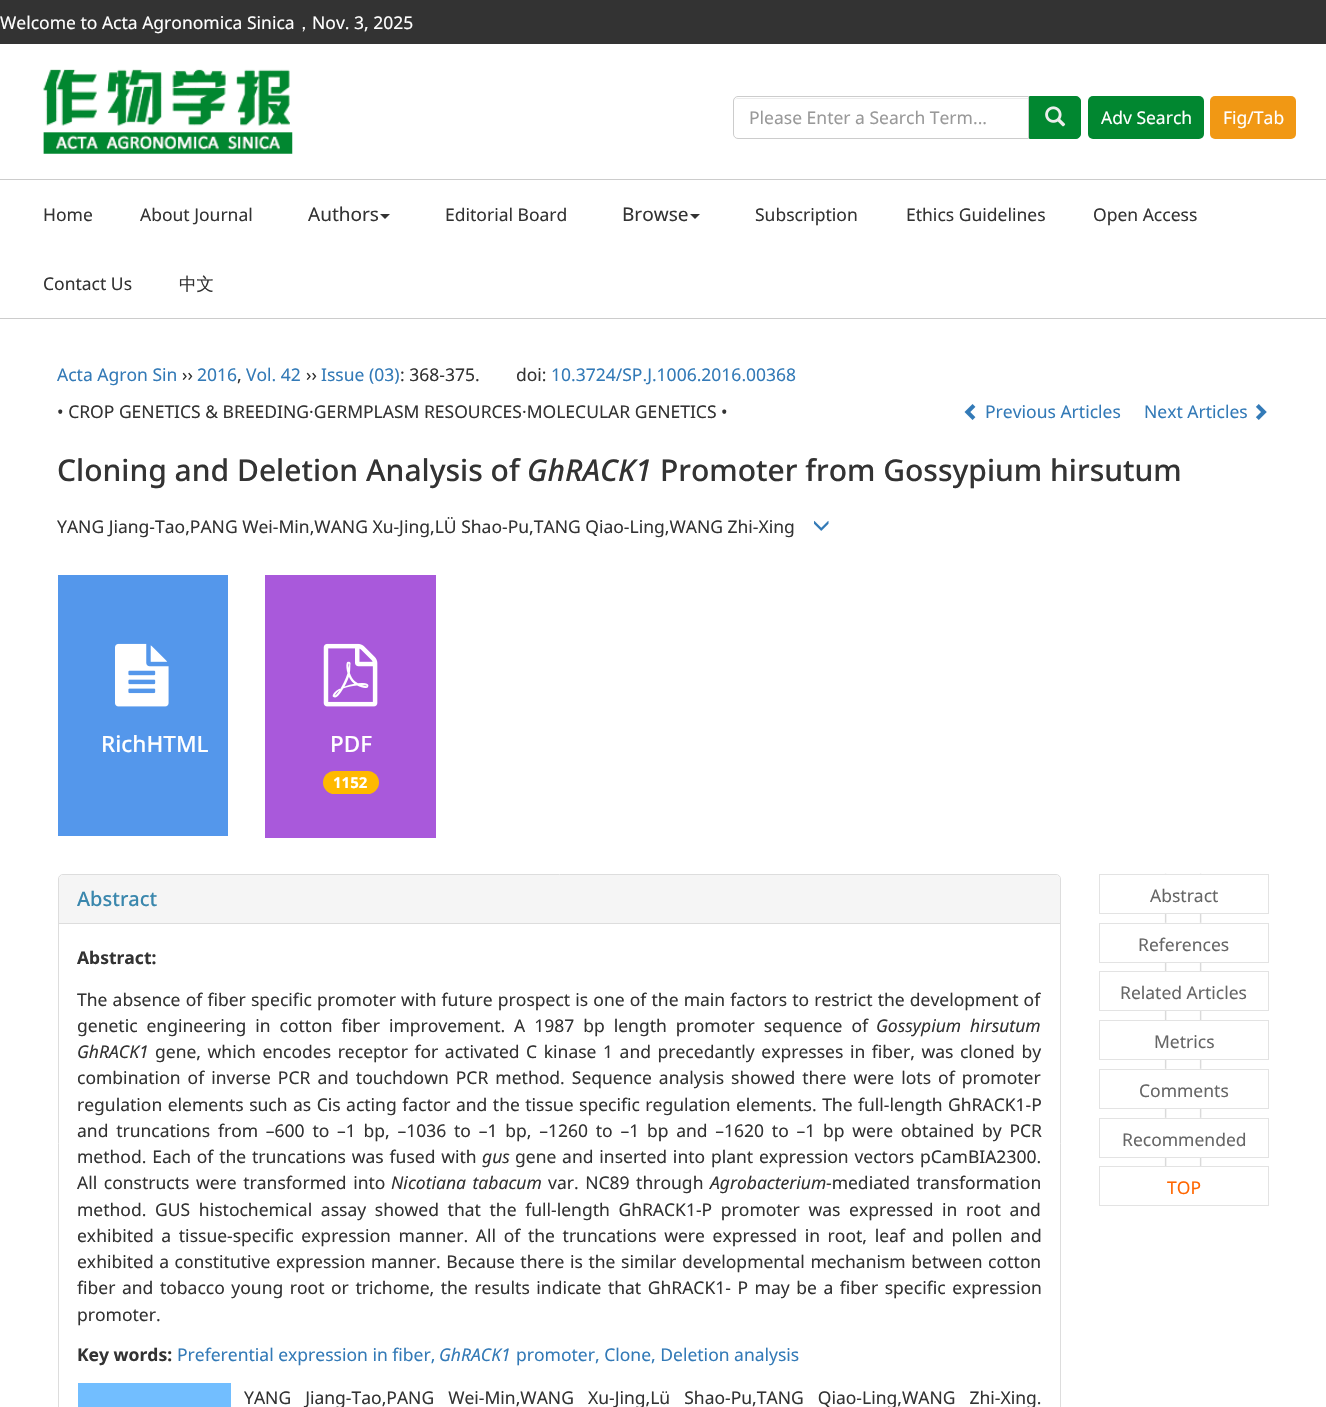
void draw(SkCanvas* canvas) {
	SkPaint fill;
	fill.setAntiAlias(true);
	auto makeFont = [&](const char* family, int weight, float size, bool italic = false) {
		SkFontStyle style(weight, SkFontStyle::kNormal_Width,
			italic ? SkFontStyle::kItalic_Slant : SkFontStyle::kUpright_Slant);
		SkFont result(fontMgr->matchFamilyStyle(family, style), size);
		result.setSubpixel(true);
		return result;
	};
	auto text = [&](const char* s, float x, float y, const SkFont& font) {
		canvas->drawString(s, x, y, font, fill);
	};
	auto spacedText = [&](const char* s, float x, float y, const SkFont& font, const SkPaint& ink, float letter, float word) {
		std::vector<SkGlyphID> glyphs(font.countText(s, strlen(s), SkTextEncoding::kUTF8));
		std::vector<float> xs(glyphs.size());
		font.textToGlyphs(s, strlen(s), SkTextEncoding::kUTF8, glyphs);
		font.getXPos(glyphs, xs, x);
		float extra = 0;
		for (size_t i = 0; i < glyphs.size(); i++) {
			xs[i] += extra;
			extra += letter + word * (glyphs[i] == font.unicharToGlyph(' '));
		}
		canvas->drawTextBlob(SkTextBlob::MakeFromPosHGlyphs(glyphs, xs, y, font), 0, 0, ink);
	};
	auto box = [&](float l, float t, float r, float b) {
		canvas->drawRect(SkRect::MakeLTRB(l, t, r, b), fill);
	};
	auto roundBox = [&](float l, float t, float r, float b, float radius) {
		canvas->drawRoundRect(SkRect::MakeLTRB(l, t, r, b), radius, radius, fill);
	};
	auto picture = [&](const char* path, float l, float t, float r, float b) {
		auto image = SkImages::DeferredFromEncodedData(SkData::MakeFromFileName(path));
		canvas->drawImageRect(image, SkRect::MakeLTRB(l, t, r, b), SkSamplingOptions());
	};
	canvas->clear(0xFFFFFFFF);
	fill.setColor(0xFF333333);
	box(0, 0, 1326, 44);
	picture("image0.png", 43, 69, 293, 154);
	fill.setColor(0xFFECECEC);
	canvas->drawPath(SkPathBuilder().moveTo(738, 99).lineTo(1028, 99).lineTo(1028, 98).lineTo(738, 98).cubicTo(736, 98, 735, 99, 734, 100).cubicTo(735, 99, 736, 99, 738, 99).close().detach(), fill);
	fill.setStyle(SkPaint::kStroke_Style);
	fill.setStrokeWidth(1);
	fill.setColor(0xFFCCCCCC);
	canvas->drawPath(SkPathBuilder().moveTo(738, 96.5f).lineTo(1028.5f, 96.5f).lineTo(1028.5f, 138.5f).lineTo(738, 138.5f).cubicTo(735.5f, 138.5f, 733.5f, 136.5f, 733.5f, 134).lineTo(733.5f, 101).cubicTo(733.5f, 98.5f, 735.5f, 96.5f, 738, 96.5f).close().detach(), fill);
	fill.setStyle(SkPaint::kFill_Style);
	fill.setColor(0xFF018730);
	canvas->drawPath(SkPathBuilder().moveTo(1029.5f, 96.5f).lineTo(1076, 96.5f).cubicTo(1078.5f, 96.5f, 1080.5f, 98.5f, 1080.5f, 101).lineTo(1080.5f, 134).cubicTo(1080.5f, 136.5f, 1078.5f, 138.5f, 1076, 138.5f).lineTo(1029.5f, 138.5f).close().detach(), fill);
	fill.setStyle(SkPaint::kStroke_Style);
	canvas->drawPath(SkPathBuilder().moveTo(1029.5f, 96.5f).lineTo(1076, 96.5f).cubicTo(1078.5f, 96.5f, 1080.5f, 98.5f, 1080.5f, 101).lineTo(1080.5f, 134).cubicTo(1080.5f, 136.5f, 1078.5f, 138.5f, 1076, 138.5f).lineTo(1029.5f, 138.5f).close().detach(), fill);
	picture("image1.png", 1045, 106, 1066, 127);
	fill.setStyle(SkPaint::kFill_Style);
	roundBox(1088, 96, 1204, 139, 5);
	fill.setColor(0xFFF19814);
	roundBox(1210, 96, 1296, 139, 5);
	fill.setColor(0xFFCCCCCC);
	box(0, 179, 1326, 180);
	box(0, 318, 1326, 319);
	fill.setColor(0xFF333333);
	canvas->drawPath(SkPathBuilder().moveTo(380, 214).lineTo(390, 214).lineTo(385, 219).close().detach(), fill);
	canvas->drawPath(SkPathBuilder().moveTo(690, 214).lineTo(700, 214).lineTo(695, 219).close().detach(), fill);
	picture("image2.png", 964, 404, 976, 420);
	picture("image3.png", 1255, 404, 1267, 420);
	picture("image4.png", 814, 520, 829, 531);
	fill.setColor(0xFF5497EB);
	box(58, 575, 228, 836);
	picture("image5.png", 115, 643, 169, 707);
	fill.setColor(0xFFA959DB);
	box(265, 575, 436, 838);
	picture("image6.png", 323, 643, 378, 707);
	fill.setColor(0xFFFFB900);
	roundBox(323, 771, 379, 794, 11.5f);
	fill.setStyle(SkPaint::kStroke_Style);
	fill.setColor(0xFFDDDDDD);
	canvas->drawRoundRect(SkRect::MakeLTRB(58.5f, 874.5f, 1060.5f, 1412.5f), 4.5f, 4.5f, fill);
	fill.setStyle(SkPaint::kFill_Style);
	fill.setColor(0xFFF5F5F5);
	canvas->drawPath(SkPathBuilder().moveTo(63, 875).lineTo(1056, 875).cubicTo(1058, 875, 1060, 877, 1060, 879).lineTo(1060, 923).lineTo(59, 923).lineTo(59, 879).cubicTo(59, 877, 61, 875, 63, 875).close().detach(), fill);
	fill.setColor(0xFFDDDDDD);
	box(59, 923, 1060, 924);
	fill.setColor(0xFF72BEFF);
	box(78, 1383, 231, 1407);
	picture("image7.png", 1164, 873, 1202, 923);
	fill.setColor(0xFFFFFFFF);
	box(1164, 875, 1202, 913);
	fill.setStyle(SkPaint::kStroke_Style);
	fill.setColor(0xFFE3E3E3);
	canvas->drawRect(SkRect::MakeLTRB(1099.5f, 874.5f, 1268.5f, 913.5f), fill);
	picture("image8.png", 1164, 922, 1202, 971);
	fill.setStyle(SkPaint::kFill_Style);
	fill.setColor(0xFFFFFFFF);
	box(1164, 924, 1202, 962);
	fill.setStyle(SkPaint::kStroke_Style);
	fill.setColor(0xFFE3E3E3);
	canvas->drawRect(SkRect::MakeLTRB(1099.5f, 923.5f, 1268.5f, 962.5f), fill);
	picture("image9.png", 1164, 1011, 1202, 1020);
	canvas->drawRect(SkRect::MakeLTRB(1099.5f, 971.5f, 1268.5f, 1010.5f), fill);
	picture("image10.png", 1164, 1060, 1202, 1069);
	canvas->drawRect(SkRect::MakeLTRB(1099.5f, 1020.5f, 1268.5f, 1059.5f), fill);
	picture("image11.png", 1164, 1109, 1202, 1118);
	canvas->drawRect(SkRect::MakeLTRB(1099.5f, 1069.5f, 1268.5f, 1108.5f), fill);
	picture("image8.png", 1164, 1117, 1202, 1166);
	fill.setStyle(SkPaint::kFill_Style);
	fill.setColor(0xFFFFFFFF);
	box(1164, 1119, 1202, 1157);
	fill.setStyle(SkPaint::kStroke_Style);
	fill.setColor(0xFFE3E3E3);
	canvas->drawRect(SkRect::MakeLTRB(1099.5f, 1118.5f, 1268.5f, 1157.5f), fill);
	canvas->drawRect(SkRect::MakeLTRB(1099.5f, 1166.5f, 1268.5f, 1205.5f), fill);
	auto font1 = makeFont("Noto Sans", 400, 17.5f);
	fill.setStyle(SkPaint::kFill_Style);
	fill.setColor(0xFFFFFFFF);
	text("Welcome to Acta Agronomica Sinica", 0, 29, font1);
	auto font2 = makeFont("WenQuanYi Zen Hei", 500, 17.5f);
	text("，", 295, 29, font2);
	text("Nov. 3, 2025", 312, 29, font1);
	fill.setColor(0xFF999999);
	text("Please Enter a Search Term...", 749, 124, font1);
	fill.setColor(0xFFFFFFFF);
	text("Adv Search", 1101, 124, font1);
	text("Fig/Tab", 1223, 124, font1);
	fill.setColor(0xFF333333);
	text("Home", 43, 221, font1);
	text("About Journal", 140, 221, font1);
	auto font3 = makeFont("Noto Sans", 400, 19);
	text("Authors", 308, 221, font3);
	text("Editorial Board", 445, 221, font1);
	text("Browse", 622, 221, font3);
	text("Subscription", 755, 221, font1);
	text("Ethics Guidelines", 906, 221, font1);
	text("Open Access", 1093, 221, font1);
	text("Contact Us", 43, 290, font1);
	text("中文", 179, 290, font2);
	fill.setColor(0xFF337AB7);
	text("Acta Agron Sin", 57, 381, font1);
	fill.setColor(0xFF333333);
	text("››", 182, 381, font1);
	fill.setColor(0xFF337AB7);
	text("2016", 197, 381, font1);
	text("Vol. 42", 246, 381, font1);
	fill.setColor(0xFF333333);
	text("››", 306, 381, font1);
	fill.setColor(0xFF337AB7);
	text("Issue (03)", 321, 381, font1);
	fill.setColor(0xFF333333);
	text(": 368-375.", 400, 381, font1);
	text("doi:", 516, 381, font1);
	fill.setColor(0xFF337AB7);
	text("10.3724/SP.J.1006.2016.00368", 551, 381, font1);
	fill.setColor(0xFF333333);
	text(",", 237, 381, font1);
	text("• CROP GENETICS & BREEDING·GERMPLASM RESOURCES·MOLECULAR GENETICS •", 57, 418, font1);
	fill.setColor(0xFF337AB7);
	text("Previous Articles", 985, 418, font1);
	text("Next Articles", 1144, 418, font1);
	auto font4 = makeFont("Noto Sans", 500, 30);
	fill.setColor(0xFF333333);
	text("Cloning and Deletion Analysis of", 57, 481, font4);
	auto font5 = makeFont("Noto Sans", 500, 30, true);
	text("GhRACK1", 527, 481, font5);
	text("Promoter from Gossypium hirsutum", 660, 481, font4);
	text("YANG Jiang-Tao,PANG Wei-Min,WANG Xu-Jing,LÜ Shao-Pu,TANG Qiao-Ling,WANG Zhi-Xing", 57, 533, font1);
	auto font6 = makeFont("Noto Sans", 500, 22.5f);
	fill.setColor(0xFFFFFFFF);
	text("RichHTML", 101, 752, font6);
	text("PDF", 330, 752, font6);
	auto font7 = makeFont("Noto Sans", 700, 15);
	text("1152", 333, 788, font7);
	auto font8 = makeFont("Noto Sans", 500, 20);
	fill.setColor(0xFF3A87AD);
	text("Abstract", 77, 906, font8);
	auto font9 = makeFont("Noto Sans", 700, 17.5f);
	fill.setColor(0xFF333333);
	text("Abstract:", 77, 964, font9);
	spacedText("The absence of fiber specific promoter with future prospect is one of the main factors to restrict the development of", 77, 1006, font1, fill, 0, 0.6f);
	spacedText("genetic engineering in cotton fiber improvement. A 1987 bp length promoter sequence of", 77, 1032, font1, fill, 0, 4.4f);
	auto font10 = makeFont("Noto Sans", 400, 17.5f, true);
	spacedText("Gossypium hirsutum", 876, 1032, font10, fill, 0, 4.4f);
	text("GhRACK1", 77, 1058, font10);
	spacedText("gene, which encodes receptor for activated C kinase 1 and precedantly expresses in fiber, was cloned by", 155, 1058, font1, fill, 0, 2);
	spacedText("combination of inverse PCR and touchdown PCR method. Sequence analysis showed there were lots of promoter", 77, 1084, font1, fill, 0, 2.5f);
	spacedText("regulation elements such as Cis acting factor and the tissue specific regulation elements. The full-length GhRACK1-P", 77, 1111, font1, fill, 0, 0.9f);
	spacedText("and truncations from –600 to –1 bp, –1036 to –1 bp, –1260 to –1 bp and –1620 to –1 bp were obtained by PCR", 77, 1137, font1, fill, 0, 3.2f);
	spacedText("method. Each of the truncations was fused with", 77, 1163, font1, fill, 0, 1.25f);
	text("gus", 482, 1163, font10);
	spacedText("gene and inserted into plant expression vectors pCamBIA2300.", 515, 1163, font1, fill, 0, 1.25f);
	spacedText("All constructs were transformed into", 77, 1189, font1, fill, 0, 2);
	spacedText("Nicotiana tabacum", 391, 1189, font10, fill, 0, 2);
	spacedText("var. NC89 through", 548, 1189, font1, fill, 0, 2);
	text("Agrobacterium", 710, 1189, font10);
	spacedText("-mediated transformation", 826, 1189, font1, fill, 0, 2);
	spacedText("method. GUS histochemical assay showed that the full-length GhRACK1-P promoter was expressed in root and", 77, 1216, font1, fill, 0, 4.1f);
	spacedText("exhibited a tissue-specific expression manner. All of the truncations were expressed in root, leaf and pollen and", 77, 1242, font1, fill, 0, 3.1f);
	spacedText("exhibited a constitutive expression manner. Because there is the similar developmental mechanism between cotton", 77, 1268, font1, fill, 0, 1);
	spacedText("fiber and tobacco young root or trichome, the results indicate that GhRACK1- P may be a fiber specific expression", 77, 1294, font1, fill, 0, 2);
	text("promoter.", 77, 1321, font1);
	text("Key words:", 77, 1361, font9);
	fill.setColor(0xFF337AB7);
	text("Preferential expression in fiber,", 177, 1361, font1);
	text("GhRACK1", 439, 1361, font10);
	text("promoter, Clone, Deletion analysis", 516, 1361, font1);
	fill.setColor(0xFF333333);
	spacedText("YANG Jiang-Tao,PANG Wei-Min,WANG Xu-Jing,Lü Shao-Pu,TANG Qiao-Ling,WANG Zhi-Xing.", 244, 1404, font1, fill, 0, 9.5f);
	fill.setColor(0xFF666666);
	text("Abstract", 1150, 902, font1);
	text("References", 1138, 951, font1);
	text("Related Articles", 1120, 999, font1);
	text("Metrics", 1154, 1048, font1);
	text("Comments", 1139, 1097, font1);
	text("Recommended", 1122, 1146, font1);
	fill.setColor(0xFFFF6600);
	text("TOP", 1167, 1194, font1);
}
